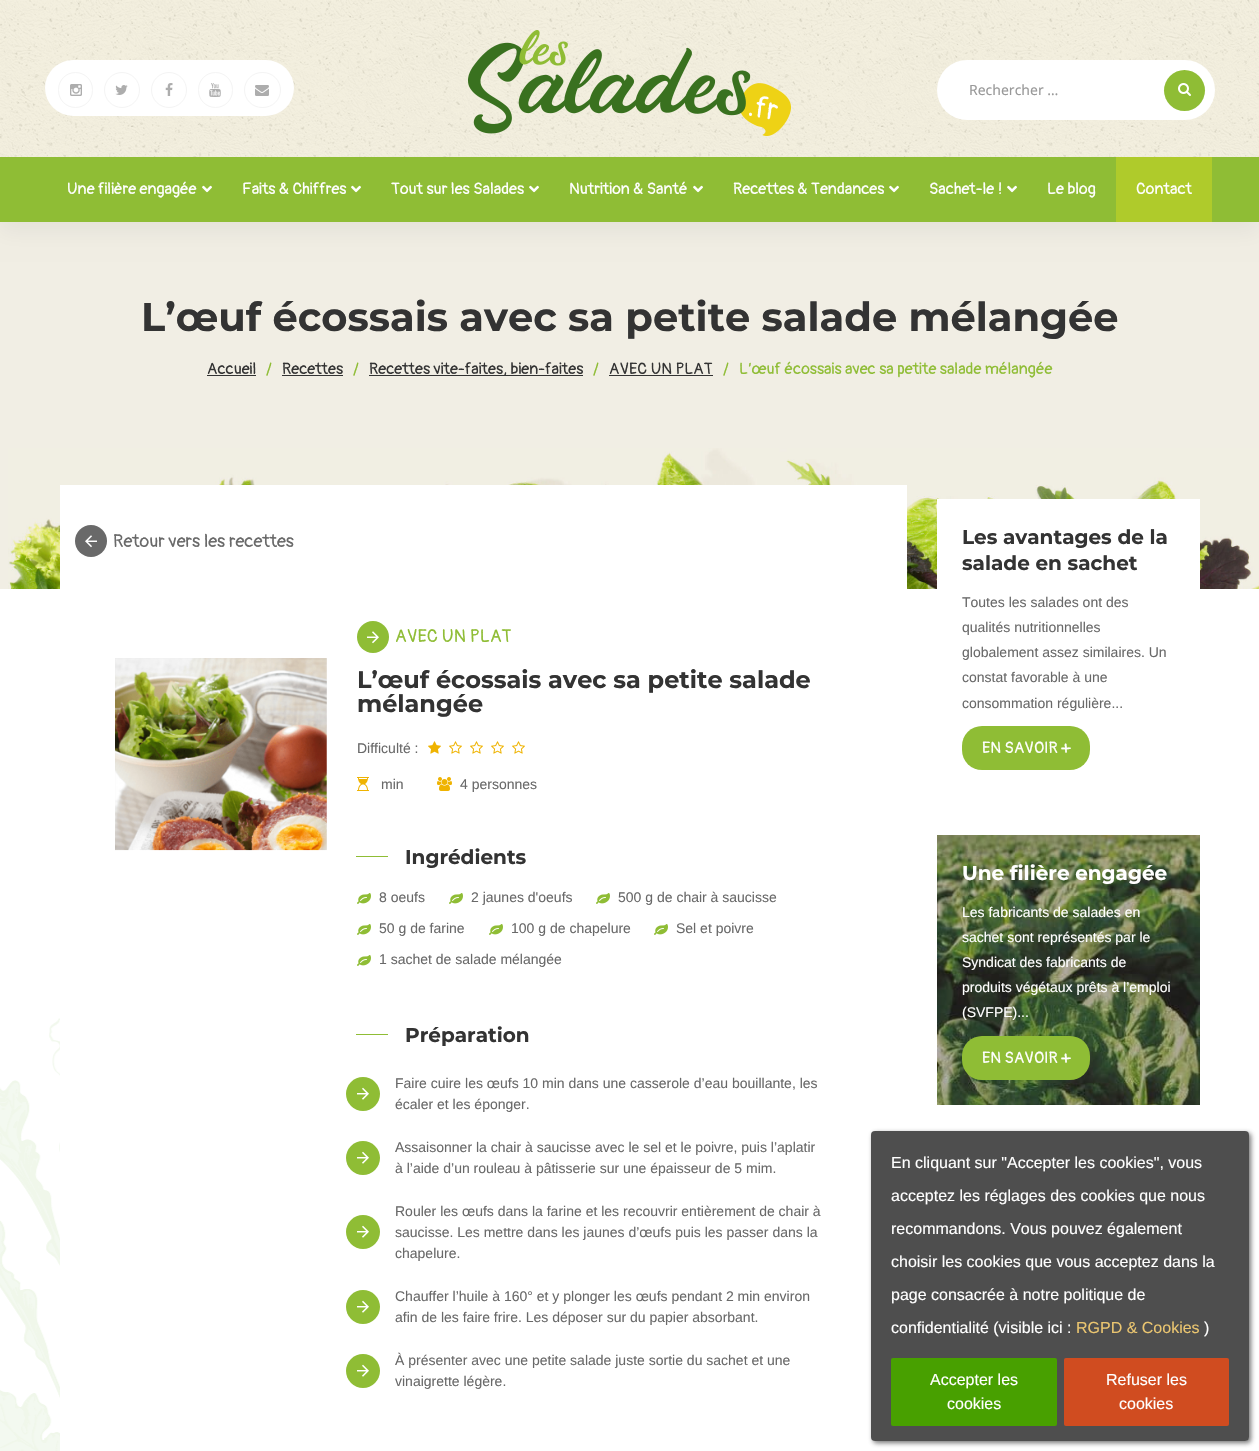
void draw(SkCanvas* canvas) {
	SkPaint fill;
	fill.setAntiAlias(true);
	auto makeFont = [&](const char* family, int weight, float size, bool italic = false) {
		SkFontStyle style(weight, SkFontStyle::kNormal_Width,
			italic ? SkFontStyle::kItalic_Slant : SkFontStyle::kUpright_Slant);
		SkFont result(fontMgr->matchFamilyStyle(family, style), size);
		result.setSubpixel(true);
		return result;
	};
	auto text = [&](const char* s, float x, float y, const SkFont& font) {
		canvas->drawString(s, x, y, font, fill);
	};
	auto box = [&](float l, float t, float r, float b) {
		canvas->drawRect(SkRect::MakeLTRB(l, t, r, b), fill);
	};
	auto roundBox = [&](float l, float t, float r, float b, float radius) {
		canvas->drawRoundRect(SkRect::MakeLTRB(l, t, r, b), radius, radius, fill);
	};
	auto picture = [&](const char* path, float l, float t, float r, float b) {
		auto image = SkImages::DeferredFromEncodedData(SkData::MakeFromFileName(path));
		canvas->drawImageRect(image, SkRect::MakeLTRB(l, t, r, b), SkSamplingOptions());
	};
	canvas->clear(0xFFFFFFFF);
	fill.setColor(0xFFF1EEE4);
	box(0, 222, 1259, 589);
	fill.setColor(0x0D000000);
	fill.setMaskFilter(SkMaskFilter::MakeBlur(kNormal_SkBlurStyle, 10));
	canvas->drawRect(SkRect::MakeLTRB(0, 10, 1259, 232), fill);
	fill.setMaskFilter(nullptr);
	picture("image0.png", 0, 0, 1259, 157);
	fill.setColor(0xFFFFFFFF);
	roundBox(45, 60, 294, 116, 28);
	fill.setStyle(SkPaint::kStroke_Style);
	fill.setStrokeWidth(1);
	fill.setColor(0xFFF4F4F4);
	canvas->drawRoundRect(SkRect::MakeLTRB(58.5f, 72.5f, 92.5f, 107.5f), 17, 17, fill);
	picture("image1.png", 70, 84, 82, 96);
	canvas->drawCircle(122, 90, 17.5f, fill);
	picture("image2.png", 115, 85, 128, 95);
	canvas->drawCircle(169, 90, 17.5f, fill);
	picture("image3.png", 165, 83, 173, 96);
	canvas->drawRoundRect(SkRect::MakeLTRB(198.5f, 72.5f, 232.5f, 107.5f), 17, 17, fill);
	picture("image4.png", 209, 83, 221, 97);
	canvas->drawRoundRect(SkRect::MakeLTRB(244.5f, 72.5f, 280.5f, 107.5f), 17.5f, 17.5f, fill);
	picture("image5.png", 255, 85, 269, 96);
	picture("image6.png", 468, 30, 791, 136);
	fill.setStyle(SkPaint::kFill_Style);
	fill.setColor(0xFFFFFFFF);
	roundBox(937, 60, 1215, 120, 30);
	fill.setColor(0xFF8FBD35);
	canvas->drawCircle(1184.5f, 90.5f, 20.5f, fill);
	picture("image7.png", 1178, 83, 1191, 96);
	box(0, 157, 1259, 222);
	picture("image8.png", 202, 185, 212, 193);
	picture("image8.png", 351, 185, 361, 193);
	picture("image8.png", 529, 185, 539, 193);
	picture("image8.png", 693, 185, 703, 193);
	picture("image8.png", 889, 185, 899, 193);
	picture("image8.png", 1007, 185, 1017, 193);
	fill.setColor(0xFFAFCB2B);
	box(1116, 157, 1212, 222);
	fill.setColor(0xFF333333);
	box(207, 375, 256, 376);
	box(282, 375, 343, 376);
	box(369, 375, 583, 376);
	box(609, 375, 713, 376);
	picture("image9.png", 8, 448, 1259, 589);
	picture("image10.png", 0, 1018, 60, 1451);
	fill.setColor(0xFFFFFFFF);
	box(60, 485, 907, 589);
	fill.setColor(0xFF696969);
	canvas->drawCircle(91, 541, 16, fill);
	picture("image11.png", 85, 535, 97, 548);
	picture("image12.png", 115, 658, 327, 851);
	fill.setColor(0xFF8FBD35);
	canvas->drawCircle(373, 637, 16, fill);
	picture("image13.png", 367, 631, 379, 644);
	picture("image14.png", 428, 741, 441, 754);
	picture("image15.png", 449, 741, 462, 754);
	picture("image15.png", 470, 741, 483, 754);
	picture("image15.png", 491, 741, 504, 754);
	picture("image15.png", 512, 741, 525, 754);
	picture("image16.png", 357, 777, 369, 791);
	picture("image17.png", 437, 777, 452, 791);
	box(356, 856, 388, 857);
	picture("image18.png", 357, 893, 371, 904);
	picture("image18.png", 449, 893, 463, 904);
	picture("image18.png", 596, 893, 610, 904);
	picture("image18.png", 357, 924, 371, 935);
	picture("image18.png", 489, 924, 503, 935);
	picture("image18.png", 654, 924, 668, 935);
	picture("image18.png", 357, 955, 371, 966);
	box(356, 1034, 388, 1035);
	canvas->drawCircle(363, 1094, 17, fill);
	picture("image19.png", 357, 1087, 369, 1100);
	canvas->drawCircle(363, 1158, 17, fill);
	picture("image19.png", 357, 1151, 369, 1164);
	canvas->drawCircle(363, 1232, 17, fill);
	picture("image19.png", 357, 1225, 369, 1238);
	canvas->drawCircle(363, 1307, 17, fill);
	picture("image19.png", 357, 1300, 369, 1313);
	canvas->drawCircle(363, 1371, 17, fill);
	picture("image19.png", 357, 1364, 369, 1377);
	fill.setColor(0xFFFFFFFF);
	box(937, 499, 1200, 589);
	fill.setColor(0xFF8FBD35);
	roundBox(962, 726, 1090, 770, 20);
	picture("image20.png", 937, 835, 1200, 1105);
	roundBox(962, 1036, 1090, 1080, 20);
	canvas->save();
	canvas->clipPath(SkPathBuilder(SkPathFillType::kEvenOdd).moveTo(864, 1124).lineTo(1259, 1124).lineTo(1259, 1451).lineTo(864, 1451).close().moveTo(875, 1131).lineTo(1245, 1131).cubicTo(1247, 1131, 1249, 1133, 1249, 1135).lineTo(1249, 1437).cubicTo(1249, 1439, 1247, 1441, 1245, 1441).lineTo(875, 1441).cubicTo(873, 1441, 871, 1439, 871, 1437).lineTo(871, 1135).cubicTo(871, 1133, 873, 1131, 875, 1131).close().detach(), true);
	fill.setColor(0xBF444444);
	fill.setMaskFilter(SkMaskFilter::MakeBlur(kNormal_SkBlurStyle, 2.5f));
	canvas->drawRoundRect(SkRect::MakeLTRB(873, 1133, 1251, 1443), 4, 4, fill);
	fill.setMaskFilter(nullptr);
	canvas->restore();
	fill.setColor(0xF2444444);
	roundBox(871, 1131, 1249, 1441, 4);
	fill.setColor(0xFF48A000);
	roundBox(891, 1358, 1057, 1426, 2);
	fill.setColor(0xFFD04C20);
	roundBox(1064, 1358, 1229, 1426, 2);
	auto font1 = makeFont("Noto Sans", 400, 14);
	fill.setColor(0xFF999999);
	text("Rechercher …", 969, 95, font1);
	auto font2 = makeFont("Pangolin", 400, 16);
	fill.setColor(0xFFFFFFFF);
	text("Une filière engagée", 67, 194, font2);
	text("Faits & Chiffres", 242, 194, font2);
	text("Tout sur les Salades", 391, 194, font2);
	text("Nutrition & Santé", 569, 194, font2);
	text("Recettes & Tendances", 733, 194, font2);
	text("Sachet-le !", 929, 194, font2);
	text("Le blog", 1047, 194, font2);
	text("Contact", 1136, 194, font2);
	auto font3 = makeFont("Montserrat", 700, 40);
	fill.setColor(0xFF333333);
	text("L’œuf écossais avec sa petite salade mélangée", 141, 331, font3);
	text("Accueil", 207, 374, font2);
	fill.setColor(0xFF8FBD35);
	text("/", 266, 374, font2);
	fill.setColor(0xFF333333);
	text("Recettes", 282, 374, font2);
	fill.setColor(0xFF8FBD35);
	text("/", 353, 374, font2);
	fill.setColor(0xFF333333);
	text("Recettes vite-faites, bien-faites", 369, 374, font2);
	fill.setColor(0xFF8FBD35);
	text("/", 593, 374, font2);
	fill.setColor(0xFF333333);
	text("AVEC UN PLAT", 609, 374, font2);
	fill.setColor(0xFF8FBD35);
	text("/", 723, 374, font2);
	text("L’œuf écossais avec sa petite salade mélangée", 739, 374, font2);
	auto font4 = makeFont("Pangolin", 400, 18);
	fill.setColor(0xFF696969);
	text("Retour vers les recettes", 113, 547, font4);
	fill.setColor(0xFF8FBD35);
	text("AVEC UN PLAT", 395, 642, font4);
	auto font5 = makeFont("Montserrat", 700, 24);
	fill.setColor(0xFF333333);
	text("L’œuf écossais avec sa petite salade", 357, 688, font5);
	text("mélangée", 357, 712, font5);
	auto font6 = makeFont("Liberation Sans", 400, 14);
	fill.setColor(0xFF696969);
	text("Difficulté :", 357, 753, font6);
	text("min", 381, 789, font6);
	text("4 personnes", 460, 789, font6);
	auto font7 = makeFont("Montserrat", 700, 20);
	fill.setColor(0xFF333333);
	text("Ingrédients", 405, 864, font7);
	fill.setColor(0xFF696969);
	text("8 oeufs", 379, 902, font6);
	text("2 jaunes d'oeufs", 471, 902, font6);
	text("500 g de chair à saucisse", 618, 902, font6);
	text("50 g de farine", 379, 933, font6);
	text("100 g de chapelure", 511, 933, font6);
	text("Sel et poivre", 676, 933, font6);
	text("1 sachet de salade mélangée", 379, 964, font6);
	fill.setColor(0xFF333333);
	text("Préparation", 405, 1042, font7);
	fill.setColor(0xFF696969);
	text("Faire cuire les œufs 10 min dans une casserole d’eau bouillante, les", 395, 1088, font6);
	text("écaler et les éponger.", 395, 1109, font6);
	text("Assaisonner la chair à saucisse avec le sel et le poivre, puis l’aplatir", 395, 1152, font6);
	text("à l’aide d’un rouleau à pâtisserie sur une épaisseur de 5 mim.", 395, 1173, font6);
	text("Rouler les œufs dans la farine et les recouvrir entièrement de chair à", 395, 1216, font6);
	text("saucisse. Les mettre dans les jaunes d’œufs puis les passer dans la", 395, 1237, font6);
	text("chapelure.", 395, 1258, font6);
	text("Chauffer l’huile à 160° et y plonger les œufs pendant 2 min environ", 395, 1301, font6);
	text("afin de les faire frire. Les déposer sur du papier absorbant.", 395, 1322, font6);
	text("À présenter avec une petite salade juste sortie du sachet et une", 395, 1365, font6);
	text("vinaigrette légère.", 395, 1386, font6);
	fill.setColor(0xFF333333);
	text("Les avantages de la", 962, 544, font7);
	text("salade en sachet", 962, 570, font7);
	fill.setColor(0xFF696969);
	text("Toutes les salades ont des", 962, 607, font6);
	text("qualités nutritionnelles", 962, 632, font6);
	text("globalement assez similaires. Un", 962, 657, font6);
	text("constat favorable à une", 962, 682, font6);
	text("consommation régulière...", 962, 708, font6);
	fill.setColor(0xFFFFFFFF);
	text("EN SAVOIR +", 982, 753, font2);
	text("Une filière engagée", 962, 880, font7);
	text("Les fabricants de salades en", 962, 917, font6);
	text("sachet sont représentés par le", 962, 942, font6);
	text("Syndicat des fabricants de", 962, 967, font6);
	text("produits végétaux prêts à l’emploi", 962, 992, font6);
	text("(SVFPE)...", 962, 1017, font6);
	text("EN SAVOIR +", 982, 1063, font2);
	auto font8 = makeFont("Liberation Sans", 400, 16);
	text("En cliquant sur \"Accepter les cookies\", vous", 891, 1168, font8);
	text("acceptez les réglages des cookies que nous", 891, 1201, font8);
	text("recommandons. Vous pouvez également", 891, 1234, font8);
	text("choisir les cookies que vous acceptez dans la", 891, 1267, font8);
	text("page consacrée à notre politique de", 891, 1300, font8);
	text("confidentialité (visible ici :", 891, 1333, font8);
	fill.setColor(0xFFEAC570);
	text("RGPD & Cookies", 1076, 1333, font8);
	fill.setColor(0xFFFFFFFF);
	text(")", 1204, 1333, font8);
	text("Accepter les", 930, 1385, font8);
	text("cookies", 947, 1409, font8);
	text("Refuser les", 1106, 1385, font8);
	text("cookies", 1119, 1409, font8);
}
